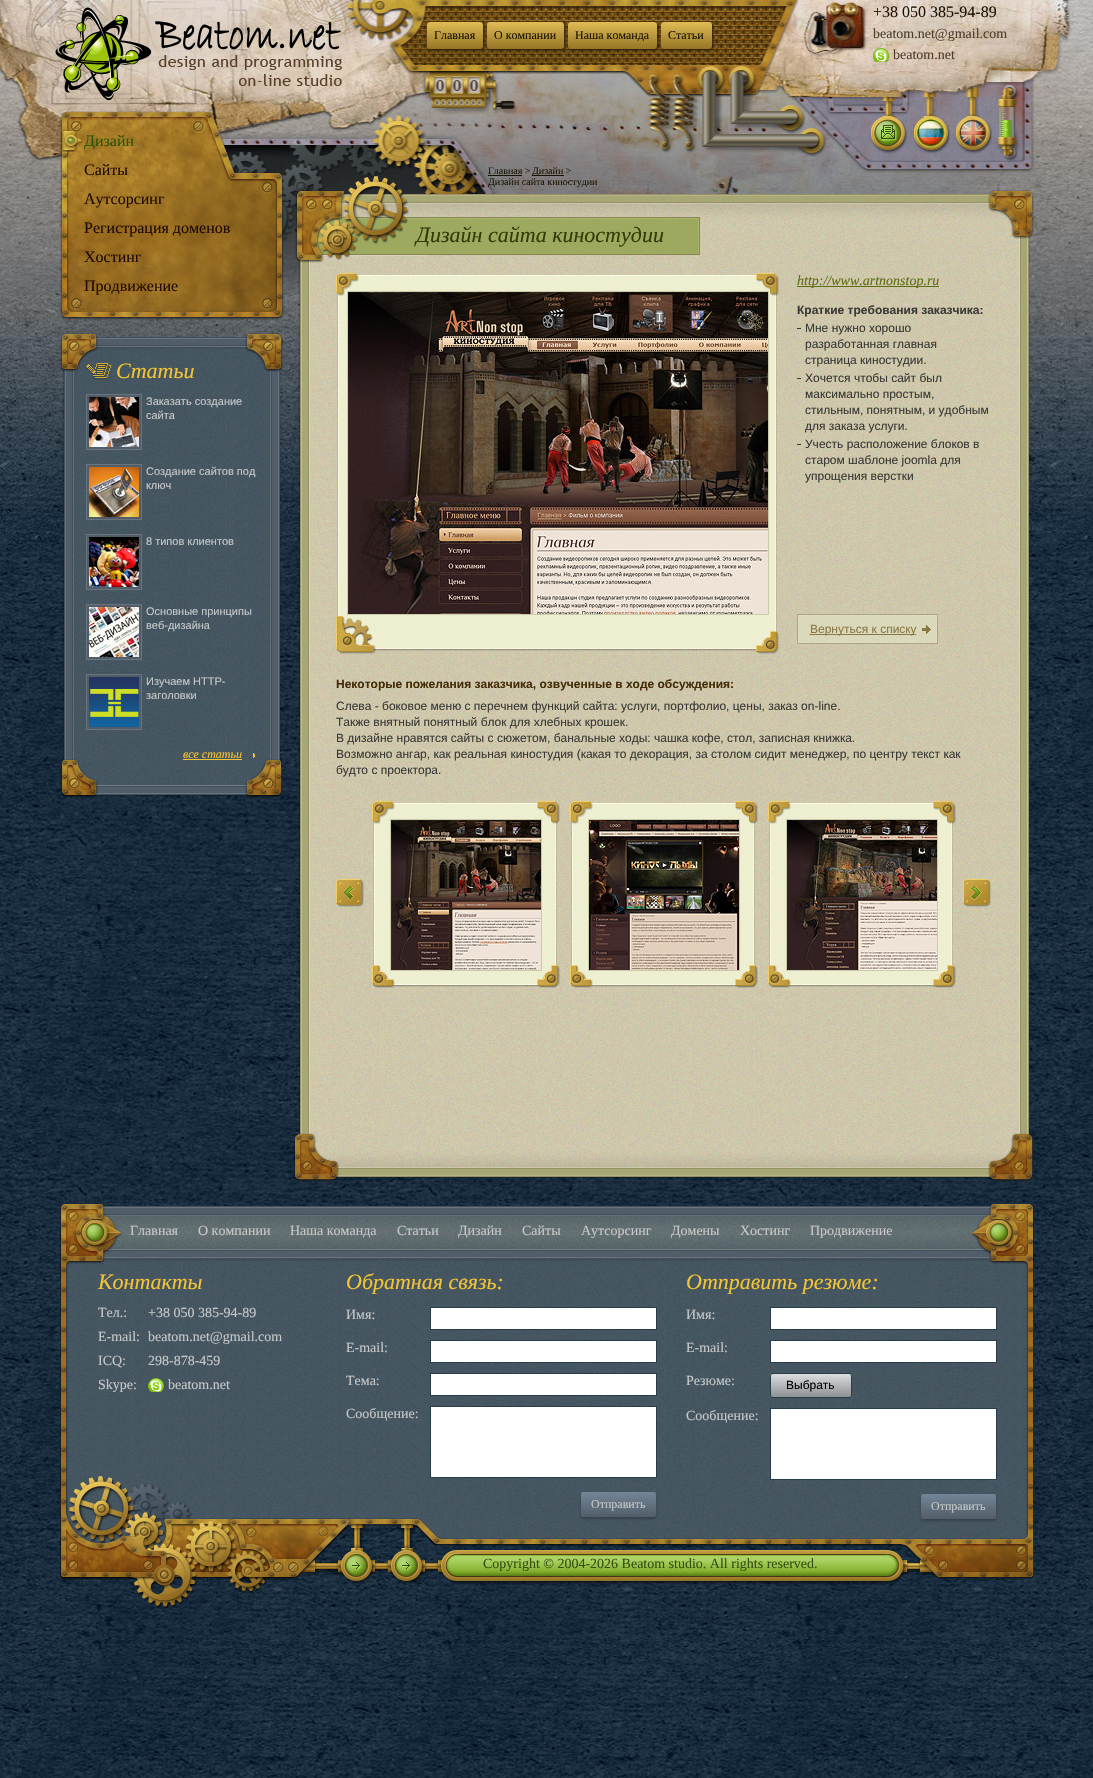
void draw(SkCanvas* canvas) {
	SkPaint fill;
	fill.setAntiAlias(true);
	auto makeFont = [&](const char* family, int weight, float size, bool italic = false) {
		SkFontStyle style(weight, SkFontStyle::kNormal_Width,
			italic ? SkFontStyle::kItalic_Slant : SkFontStyle::kUpright_Slant);
		SkFont result(fontMgr->matchFamilyStyle(family, style), size);
		result.setSubpixel(true);
		return result;
	};
	auto text = [&](const char* s, float x, float y, const SkFont& font) {
		canvas->drawString(s, x, y, font, fill);
	};
	auto box = [&](float l, float t, float r, float b) {
		canvas->drawRect(SkRect::MakeLTRB(l, t, r, b), fill);
	};
	auto roundBox = [&](float l, float t, float r, float b, float radius) {
		canvas->drawRoundRect(SkRect::MakeLTRB(l, t, r, b), radius, radius, fill);
	};
	auto picture = [&](const char* path, float l, float t, float r, float b) {
		auto image = SkImages::DeferredFromEncodedData(SkData::MakeFromFileName(path));
		canvas->drawImageRect(image, SkRect::MakeLTRB(l, t, r, b), SkSamplingOptions());
	};
	canvas->clear(0xFFFFFFFF);
	picture("image0.png", 0, 550, 1093, 1778);
	picture("image1.png", 0, 295, 1093, 550);
	picture("image2.png", 0, 0, 1093, 295);
	picture("image3.png", 55, 7, 342, 101);
	fill.setColor(0xFF2B1D06);
	fill.setMaskFilter(SkMaskFilter::MakeBlur(kNormal_SkBlurStyle, 1.5f));
	canvas->drawRoundRect(SkRect::MakeLTRB(428, 23, 484, 50), 3, 3, fill);
	fill.setMaskFilter(nullptr);
	{
		const SkColor colors[] = {0xFFE0BD55, 0xFF967526};
		const float stops[] = {0, 1};
		const SkPoint ends[] = {{455, 22}, {455, 49}};
		fill.setShader(SkGradientShader::MakeLinear(ends, colors, stops, 2, SkTileMode::kClamp));
		fill.setAlpha(255);
	}
	roundBox(427, 22, 483, 49, 3);
	fill.setShader(nullptr);
	fill.setColor(0xFF2B1D06);
	fill.setMaskFilter(SkMaskFilter::MakeBlur(kNormal_SkBlurStyle, 1.5f));
	canvas->drawRoundRect(SkRect::MakeLTRB(488, 23, 565, 50), 3, 3, fill);
	fill.setMaskFilter(nullptr);
	{
		const SkColor colors[] = {0xFFE0BD55, 0xFF967526};
		const float stops[] = {0, 1};
		const SkPoint ends[] = {{526, 22}, {526, 49}};
		fill.setShader(SkGradientShader::MakeLinear(ends, colors, stops, 2, SkTileMode::kClamp));
		fill.setAlpha(255);
	}
	roundBox(487, 22, 564, 49, 3);
	fill.setShader(nullptr);
	fill.setColor(0xFF2B1D06);
	fill.setMaskFilter(SkMaskFilter::MakeBlur(kNormal_SkBlurStyle, 1.5f));
	canvas->drawRoundRect(SkRect::MakeLTRB(569, 23, 658, 50), 3, 3, fill);
	fill.setMaskFilter(nullptr);
	{
		const SkColor colors[] = {0xFFE0BD55, 0xFF967526};
		const float stops[] = {0, 1};
		const SkPoint ends[] = {{613, 22}, {613, 49}};
		fill.setShader(SkGradientShader::MakeLinear(ends, colors, stops, 2, SkTileMode::kClamp));
		fill.setAlpha(255);
	}
	roundBox(568, 22, 657, 49, 3);
	fill.setShader(nullptr);
	fill.setColor(0xFF2B1D06);
	fill.setMaskFilter(SkMaskFilter::MakeBlur(kNormal_SkBlurStyle, 1.5f));
	canvas->drawRoundRect(SkRect::MakeLTRB(662, 23, 713, 50), 3, 3, fill);
	fill.setMaskFilter(nullptr);
	{
		const SkColor colors[] = {0xFFE0BD55, 0xFF967526};
		const float stops[] = {0, 1};
		const SkPoint ends[] = {{687, 22}, {687, 49}};
		fill.setShader(SkGradientShader::MakeLinear(ends, colors, stops, 2, SkTileMode::kClamp));
		fill.setAlpha(255);
	}
	roundBox(661, 22, 712, 49, 3);
	picture("image4.png", 873, 48, 890, 62);
	picture("image5.png", 60, 111, 284, 320);
	picture("image6.png", 60, 130, 83, 152);
	picture("image7.png", 870, 116, 908, 154);
	picture("image8.png", 911, 116, 950, 154);
	picture("image9.png", 953, 116, 992, 154);
	picture("image11.png", 62, 360, 281, 759);
	picture("image12.png", 86, 363, 112, 380);
	fill.setShader(nullptr);
	fill.setColor(0xFF515D69);
	canvas->drawRect(SkRect::MakeLTRB(86.5f, 394.5f, 141.5f, 449.5f), fill);
	fill.setStyle(SkPaint::kStroke_Style);
	fill.setStrokeWidth(1);
	fill.setColor(0xFF69747F);
	canvas->drawRect(SkRect::MakeLTRB(86.5f, 394.5f, 141.5f, 449.5f), fill);
	picture("image13.png", 89, 397, 139, 447);
	fill.setStyle(SkPaint::kFill_Style);
	fill.setColor(0xFF515D69);
	canvas->drawRect(SkRect::MakeLTRB(86.5f, 464.5f, 141.5f, 519.5f), fill);
	fill.setStyle(SkPaint::kStroke_Style);
	fill.setColor(0xFF69747F);
	canvas->drawRect(SkRect::MakeLTRB(86.5f, 464.5f, 141.5f, 519.5f), fill);
	picture("image14.png", 89, 467, 139, 517);
	fill.setStyle(SkPaint::kFill_Style);
	fill.setColor(0xFF515D69);
	canvas->drawRect(SkRect::MakeLTRB(86.5f, 534.5f, 141.5f, 589.5f), fill);
	fill.setStyle(SkPaint::kStroke_Style);
	fill.setColor(0xFF69747F);
	canvas->drawRect(SkRect::MakeLTRB(86.5f, 534.5f, 141.5f, 589.5f), fill);
	picture("image15.png", 89, 537, 139, 587);
	fill.setStyle(SkPaint::kFill_Style);
	fill.setColor(0xFF515D69);
	canvas->drawRect(SkRect::MakeLTRB(86.5f, 604.5f, 141.5f, 659.5f), fill);
	fill.setStyle(SkPaint::kStroke_Style);
	fill.setColor(0xFF69747F);
	canvas->drawRect(SkRect::MakeLTRB(86.5f, 604.5f, 141.5f, 659.5f), fill);
	picture("image16.png", 89, 607, 139, 657);
	fill.setStyle(SkPaint::kFill_Style);
	fill.setColor(0xFF515D69);
	canvas->drawRect(SkRect::MakeLTRB(86.5f, 674.5f, 141.5f, 729.5f), fill);
	fill.setStyle(SkPaint::kStroke_Style);
	fill.setColor(0xFF69747F);
	canvas->drawRect(SkRect::MakeLTRB(86.5f, 674.5f, 141.5f, 729.5f), fill);
	picture("image17.png", 89, 677, 139, 727);
	picture("image19.png", 60, 759, 283, 798);
	fill.setStyle(SkPaint::kFill_Style);
	fill.setColor(0xFFF3C433);
	box(183, 759, 242, 760);
	picture("image18.png", 253, 753, 255, 758);
	fill.setColor(0xFF1A1202);
	box(488, 175, 522, 176);
	box(532, 175, 564, 176);
	picture("image20.png", 295, 176, 1034, 263);
	fill.setColor(0xFF9CA95F);
	box(425, 219, 698, 254);
	fill.setColor(0xFF838856);
	box(426, 217, 700, 218);
	box(699, 217, 700, 255);
	box(426, 254, 700, 255);
	fill.setColor(0xFFA8B56C);
	box(426, 218, 699, 219);
	box(698, 218, 699, 254);
	picture("image21.png", 298, 263, 1030, 1133);
	picture("image22.png", 336, 273, 779, 654);
	fill.setStyle(SkPaint::kStroke_Style);
	fill.setColor(0xFFCACBAA);
	canvas->drawRect(SkRect::MakeLTRB(347.5f, 291.5f, 768.5f, 614.5f), fill);
	picture("image23.png", 348, 292, 768, 614);
	fill.setStyle(SkPaint::kFill_Style);
	fill.setColor(0xFF5E6E14);
	box(797, 286, 939, 287);
	fill.setColor(0xFF3A3935);
	box(797, 328, 801, 329);
	box(797, 378, 801, 379);
	box(797, 444, 801, 445);
	fill.setColor(0xFFDBD9BB);
	box(799, 616, 936, 642);
	fill.setStyle(SkPaint::kStroke_Style);
	fill.setColor(0xFFADA488);
	canvas->drawRect(SkRect::MakeLTRB(797.5f, 614.5f, 937.5f, 643.5f), fill);
	picture("image24.png", 809, 625, 931, 635);
	fill.setColor(0xFFDDDCBE);
	canvas->drawRect(SkRect::MakeLTRB(798.5f, 615.5f, 936.5f, 642.5f), fill);
	fill.setStyle(SkPaint::kFill_Style);
	fill.setColor(0xFF897845);
	box(824, 634, 916, 635);
	picture("image25.png", 336, 879, 364, 907);
	picture("image26.png", 372, 801, 560, 988);
	fill.setStyle(SkPaint::kStroke_Style);
	fill.setColor(0xFFCACBAA);
	canvas->drawRect(SkRect::MakeLTRB(390.5f, 819.5f, 541.5f, 970.5f), fill);
	picture("image27.png", 391, 820, 541, 970);
	picture("image28.png", 570, 801, 758, 988);
	canvas->drawRect(SkRect::MakeLTRB(588.5f, 819.5f, 739.5f, 970.5f), fill);
	picture("image29.png", 589, 820, 739, 970);
	picture("image30.png", 768, 801, 956, 988);
	canvas->drawRect(SkRect::MakeLTRB(786.5f, 819.5f, 937.5f, 970.5f), fill);
	picture("image31.png", 787, 820, 937, 970);
	picture("image32.png", 963, 879, 991, 907);
	picture("image33.png", 293, 1133, 1034, 1182);
	picture("image34.png", 60, 1267, 1034, 1525);
	picture("image35.png", 60, 1203, 1034, 1267);
	picture("image36.png", 148, 1378, 165, 1392);
	fill.setStyle(SkPaint::kFill_Style);
	fill.setColor(0xFFFFFFFF);
	canvas->drawRect(SkRect::MakeLTRB(430.5f, 1307.5f, 656.5f, 1329.5f), fill);
	fill.setStyle(SkPaint::kStroke_Style);
	fill.setColor(0xFF263E47);
	canvas->drawRect(SkRect::MakeLTRB(430.5f, 1307.5f, 656.5f, 1329.5f), fill);
	fill.setStyle(SkPaint::kFill_Style);
	fill.setColor(0xFFFFFFFF);
	canvas->drawRect(SkRect::MakeLTRB(430.5f, 1340.5f, 656.5f, 1362.5f), fill);
	fill.setStyle(SkPaint::kStroke_Style);
	fill.setColor(0xFF263E47);
	canvas->drawRect(SkRect::MakeLTRB(430.5f, 1340.5f, 656.5f, 1362.5f), fill);
	fill.setStyle(SkPaint::kFill_Style);
	fill.setColor(0xFFFFFFFF);
	canvas->drawRect(SkRect::MakeLTRB(430.5f, 1373.5f, 656.5f, 1395.5f), fill);
	fill.setStyle(SkPaint::kStroke_Style);
	fill.setColor(0xFF263E47);
	canvas->drawRect(SkRect::MakeLTRB(430.5f, 1373.5f, 656.5f, 1395.5f), fill);
	picture("image37.png", 60, 1476, 1034, 1609);
	fill.setStyle(SkPaint::kFill_Style);
	fill.setColor(0xFFFFFFFF);
	canvas->drawRect(SkRect::MakeLTRB(430.5f, 1406.5f, 656.5f, 1477.5f), fill);
	fill.setStyle(SkPaint::kStroke_Style);
	fill.setColor(0xFF263E47);
	canvas->drawRect(SkRect::MakeLTRB(430.5f, 1406.5f, 656.5f, 1477.5f), fill);
	fill.setStyle(SkPaint::kFill_Style);
	fill.setColor(0xFF35404C);
	fill.setMaskFilter(SkMaskFilter::MakeBlur(kNormal_SkBlurStyle, 1.5f));
	canvas->drawRoundRect(SkRect::MakeLTRB(581, 1494, 656, 1519), 2, 2, fill);
	fill.setMaskFilter(nullptr);
	{
		const SkColor colors[] = {0xFF738596, 0xFF525E6A};
		const float stops[] = {0, 1};
		const SkPoint ends[] = {{619, 1492}, {619, 1517}};
		fill.setShader(SkGradientShader::MakeLinear(ends, colors, stops, 2, SkTileMode::kClamp));
		fill.setAlpha(255);
	}
	roundBox(581, 1492, 656, 1517, 2);
	fill.setShader(nullptr);
	fill.setColor(0xFFFFFFFF);
	canvas->drawRect(SkRect::MakeLTRB(770.5f, 1307.5f, 996.5f, 1329.5f), fill);
	fill.setStyle(SkPaint::kStroke_Style);
	fill.setColor(0xFF263E47);
	canvas->drawRect(SkRect::MakeLTRB(770.5f, 1307.5f, 996.5f, 1329.5f), fill);
	fill.setStyle(SkPaint::kFill_Style);
	fill.setColor(0xFFFFFFFF);
	canvas->drawRect(SkRect::MakeLTRB(770.5f, 1340.5f, 996.5f, 1362.5f), fill);
	fill.setStyle(SkPaint::kStroke_Style);
	fill.setColor(0xFF263E47);
	canvas->drawRect(SkRect::MakeLTRB(770.5f, 1340.5f, 996.5f, 1362.5f), fill);
	canvas->save();
	canvas->clipPath(SkPathBuilder().moveTo(773, 1373).lineTo(849, 1373).cubicTo(850.5f, 1373, 852, 1374.5f, 852, 1376).lineTo(852, 1395).cubicTo(852, 1396.5f, 850.5f, 1398, 849, 1398).lineTo(773, 1398).cubicTo(771.5f, 1398, 770, 1396.5f, 770, 1395).lineTo(770, 1376).cubicTo(770, 1374.5f, 771.5f, 1373, 773, 1373).close().detach(), true);
	fill.setStyle(SkPaint::kFill_Style);
	{
		const SkColor colors[] = {0xFFDBDDDF, 0xFF8D9295};
		const float stops[] = {0, 1};
		const SkPoint ends[] = {{811, 1374}, {811, 1397}};
		fill.setShader(SkGradientShader::MakeLinear(ends, colors, stops, 2, SkTileMode::kClamp));
		fill.setAlpha(255);
	}
	box(770, 1374, 852, 1397);
	canvas->restore();
	fill.setStyle(SkPaint::kStroke_Style);
	fill.setShader(nullptr);
	fill.setColor(0xFF283F48);
	canvas->drawRoundRect(SkRect::MakeLTRB(770.5f, 1373.5f, 851.5f, 1397.5f), 2.5f, 2.5f, fill);
	fill.setStyle(SkPaint::kFill_Style);
	fill.setColor(0xFFFFFFFF);
	canvas->drawRect(SkRect::MakeLTRB(770.5f, 1408.5f, 996.5f, 1479.5f), fill);
	fill.setStyle(SkPaint::kStroke_Style);
	fill.setColor(0xFF263E47);
	canvas->drawRect(SkRect::MakeLTRB(770.5f, 1408.5f, 996.5f, 1479.5f), fill);
	fill.setStyle(SkPaint::kFill_Style);
	fill.setColor(0xFF35404C);
	fill.setMaskFilter(SkMaskFilter::MakeBlur(kNormal_SkBlurStyle, 1.5f));
	canvas->drawRoundRect(SkRect::MakeLTRB(921, 1496, 996, 1521), 2, 2, fill);
	fill.setMaskFilter(nullptr);
	{
		const SkColor colors[] = {0xFF738596, 0xFF525E6A};
		const float stops[] = {0, 1};
		const SkPoint ends[] = {{959, 1494}, {959, 1519}};
		fill.setShader(SkGradientShader::MakeLinear(ends, colors, stops, 2, SkTileMode::kClamp));
		fill.setAlpha(255);
	}
	roundBox(921, 1494, 996, 1519, 2);
	auto font1 = makeFont("Liberation Serif", 400, 12);
	fill.setShader(nullptr);
	fill.setColor(0xFF1A1202);
	text("Главная", 434, 39, font1);
	text("О компании", 494, 39, font1);
	text("Наша команда", 575, 39, font1);
	text("Статьи", 668, 39, font1);
	auto font2 = makeFont("Liberation Serif", 400, 16);
	text("+38 050 385-94-89", 873, 17, font2);
	auto font3 = makeFont("Liberation Serif", 400, 14);
	fill.setColor(0xFF513D2C);
	text("beatom.net@gmail.com", 873, 38, font3);
	text("beatom.net", 893, 59, font3);
	fill.setColor(0xFF2A5503);
	text("Дизайн", 84, 146, font2);
	fill.setColor(0xFF200901);
	text("Сайты", 84, 175, font2);
	text("Аутсорсинг", 84, 204, font2);
	text("Регистрация доменов", 84, 233, font2);
	text("Хостинг", 84, 262, font2);
	text("Продвижение", 84, 291, font2);
	auto font4 = makeFont("Liberation Serif", 400, 22, true);
	fill.setColor(0xFFF3C433);
	text("Статьи", 116, 378, font4);
	picture("image10.png", 60, 333, 283, 372);
	auto font5 = makeFont("Liberation Sans", 400, 11);
	fill.setColor(0xFFC6C8C9);
	text("Заказать создание", 146, 405, font5);
	text("сайта", 146, 419, font5);
	text("Создание сайтов под", 146, 475, font5);
	text("ключ", 146, 489, font5);
	text("8 типов клиентов", 146, 545, font5);
	text("Основные принципы", 146, 615, font5);
	text("веб-дизайна", 146, 629, font5);
	text("Изучаем HTTP-", 146, 685, font5);
	text("заголовки", 146, 699, font5);
	auto font6 = makeFont("Liberation Serif", 400, 12, true);
	fill.setColor(0xFFF3C433);
	text("все статьи", 183, 758, font6);
	auto font7 = makeFont("Liberation Serif", 400, 10);
	fill.setColor(0xFF1A1202);
	text("Главная >", 488, 174, font7);
	text("Дизайн >", 532, 174, font7);
	text("Дизайн сайта киностудии", 488, 185, font7);
	fill.setColor(0xFF313B05);
	text("Дизайн сайта киностудии", 416, 242, font4);
	auto font8 = makeFont("Liberation Serif", 400, 14, true);
	fill.setColor(0xFF5E6E14);
	text("http://www.artnonstop.ru", 797, 285, font8);
	auto font9 = makeFont("Liberation Sans", 700, 12);
	fill.setColor(0xFF3A3935);
	text("Краткие требования заказчика:", 797, 314, font9);
	auto font10 = makeFont("Liberation Sans", 400, 12);
	text("Мне нужно хорошо", 805, 332, font10);
	text("разработанная главная", 805, 348, font10);
	text("страница киностудии.", 805, 364, font10);
	text("Хочется чтобы сайт был", 805, 382, font10);
	text("максимально простым,", 805, 398, font10);
	text("стильным, понятным, и удобным", 805, 414, font10);
	text("для заказа услуги.", 805, 430, font10);
	text("Учесть расположение блоков в", 805, 448, font10);
	text("старом шаблоне joomla для", 805, 464, font10);
	text("упрощения верстки", 805, 480, font10);
	fill.setColor(0xFF897845);
	text("Вернуться к списку", 810, 633, font10);
	fill.setColor(0xFF442C07);
	text("Некоторые пожелания заказчика, озвученные в ходе обсуждения:", 336, 688, font9);
	fill.setColor(0xFF3A3935);
	text("Слева - боковое меню с перечнем функций сайта: услуги, портфолио, цены, заказ on-line.", 336, 710, font10);
	text("Также внятный понятный блок для хлебных крошек.", 336, 726, font10);
	text("В дизайне нравятся сайты с сюжетом, банальные ходы: чашка кофе, стол, записная книжка.", 336, 742, font10);
	text("Возможно ангар, как реальная киностудия (какая то декорация, за столом сидит менеджер, по центру текст как", 336, 758, font10);
	text("будто с проектора.", 336, 774, font10);
	fill.setColor(0xFFC6C8C9);
	text("Главная", 130, 1235, font3);
	text("О компании", 198, 1235, font3);
	text("Наша команда", 290, 1235, font3);
	text("Статьи", 397, 1235, font3);
	text("Дизайн", 458, 1235, font3);
	text("Сайты", 522, 1235, font3);
	text("Аутсорсинг", 581, 1235, font3);
	text("Домены", 671, 1235, font3);
	text("Хостинг", 740, 1235, font3);
	text("Продвижение", 810, 1235, font3);
	fill.setColor(0xFFF3C433);
	text("Контакты", 98, 1289, font4);
	fill.setColor(0xFFC6C8C9);
	text("Тел.:", 98, 1317, font3);
	text("+38 050 385-94-89", 148, 1317, font3);
	text("E-mail:", 98, 1341, font3);
	text("beatom.net@gmail.com", 148, 1341, font3);
	text("ICQ:", 98, 1365, font3);
	text("298-878-459", 148, 1365, font3);
	text("Skype:", 98, 1389, font3);
	text("beatom.net", 168, 1389, font3);
	fill.setColor(0xFFF3C433);
	text("Обратная связь:", 346, 1289, font4);
	fill.setColor(0xFFC6C8C9);
	text("Имя:", 346, 1319, font3);
	text("E-mail:", 346, 1352, font3);
	text("Тема:", 346, 1385, font3);
	text("Сообщение:", 346, 1418, font3);
	text("Отправить", 591, 1508, font1);
	fill.setColor(0xFFF3C433);
	text("Отправить резюме:", 686, 1289, font4);
	fill.setColor(0xFFC6C8C9);
	text("Имя:", 686, 1319, font3);
	text("E-mail:", 686, 1352, font3);
	text("Резюме:", 686, 1385, font3);
	fill.setColor(0xFF000000);
	text("Выбрать", 786, 1389, font10);
	fill.setColor(0xFFC6C8C9);
	text("Сообщение:", 686, 1420, font3);
	text("Отправить", 931, 1510, font1);
	fill.setColor(0xFF384D11);
	text("Copyright © 2004-2026 Beatom studio. All rights reserved.", 483, 1568, font3);
}
